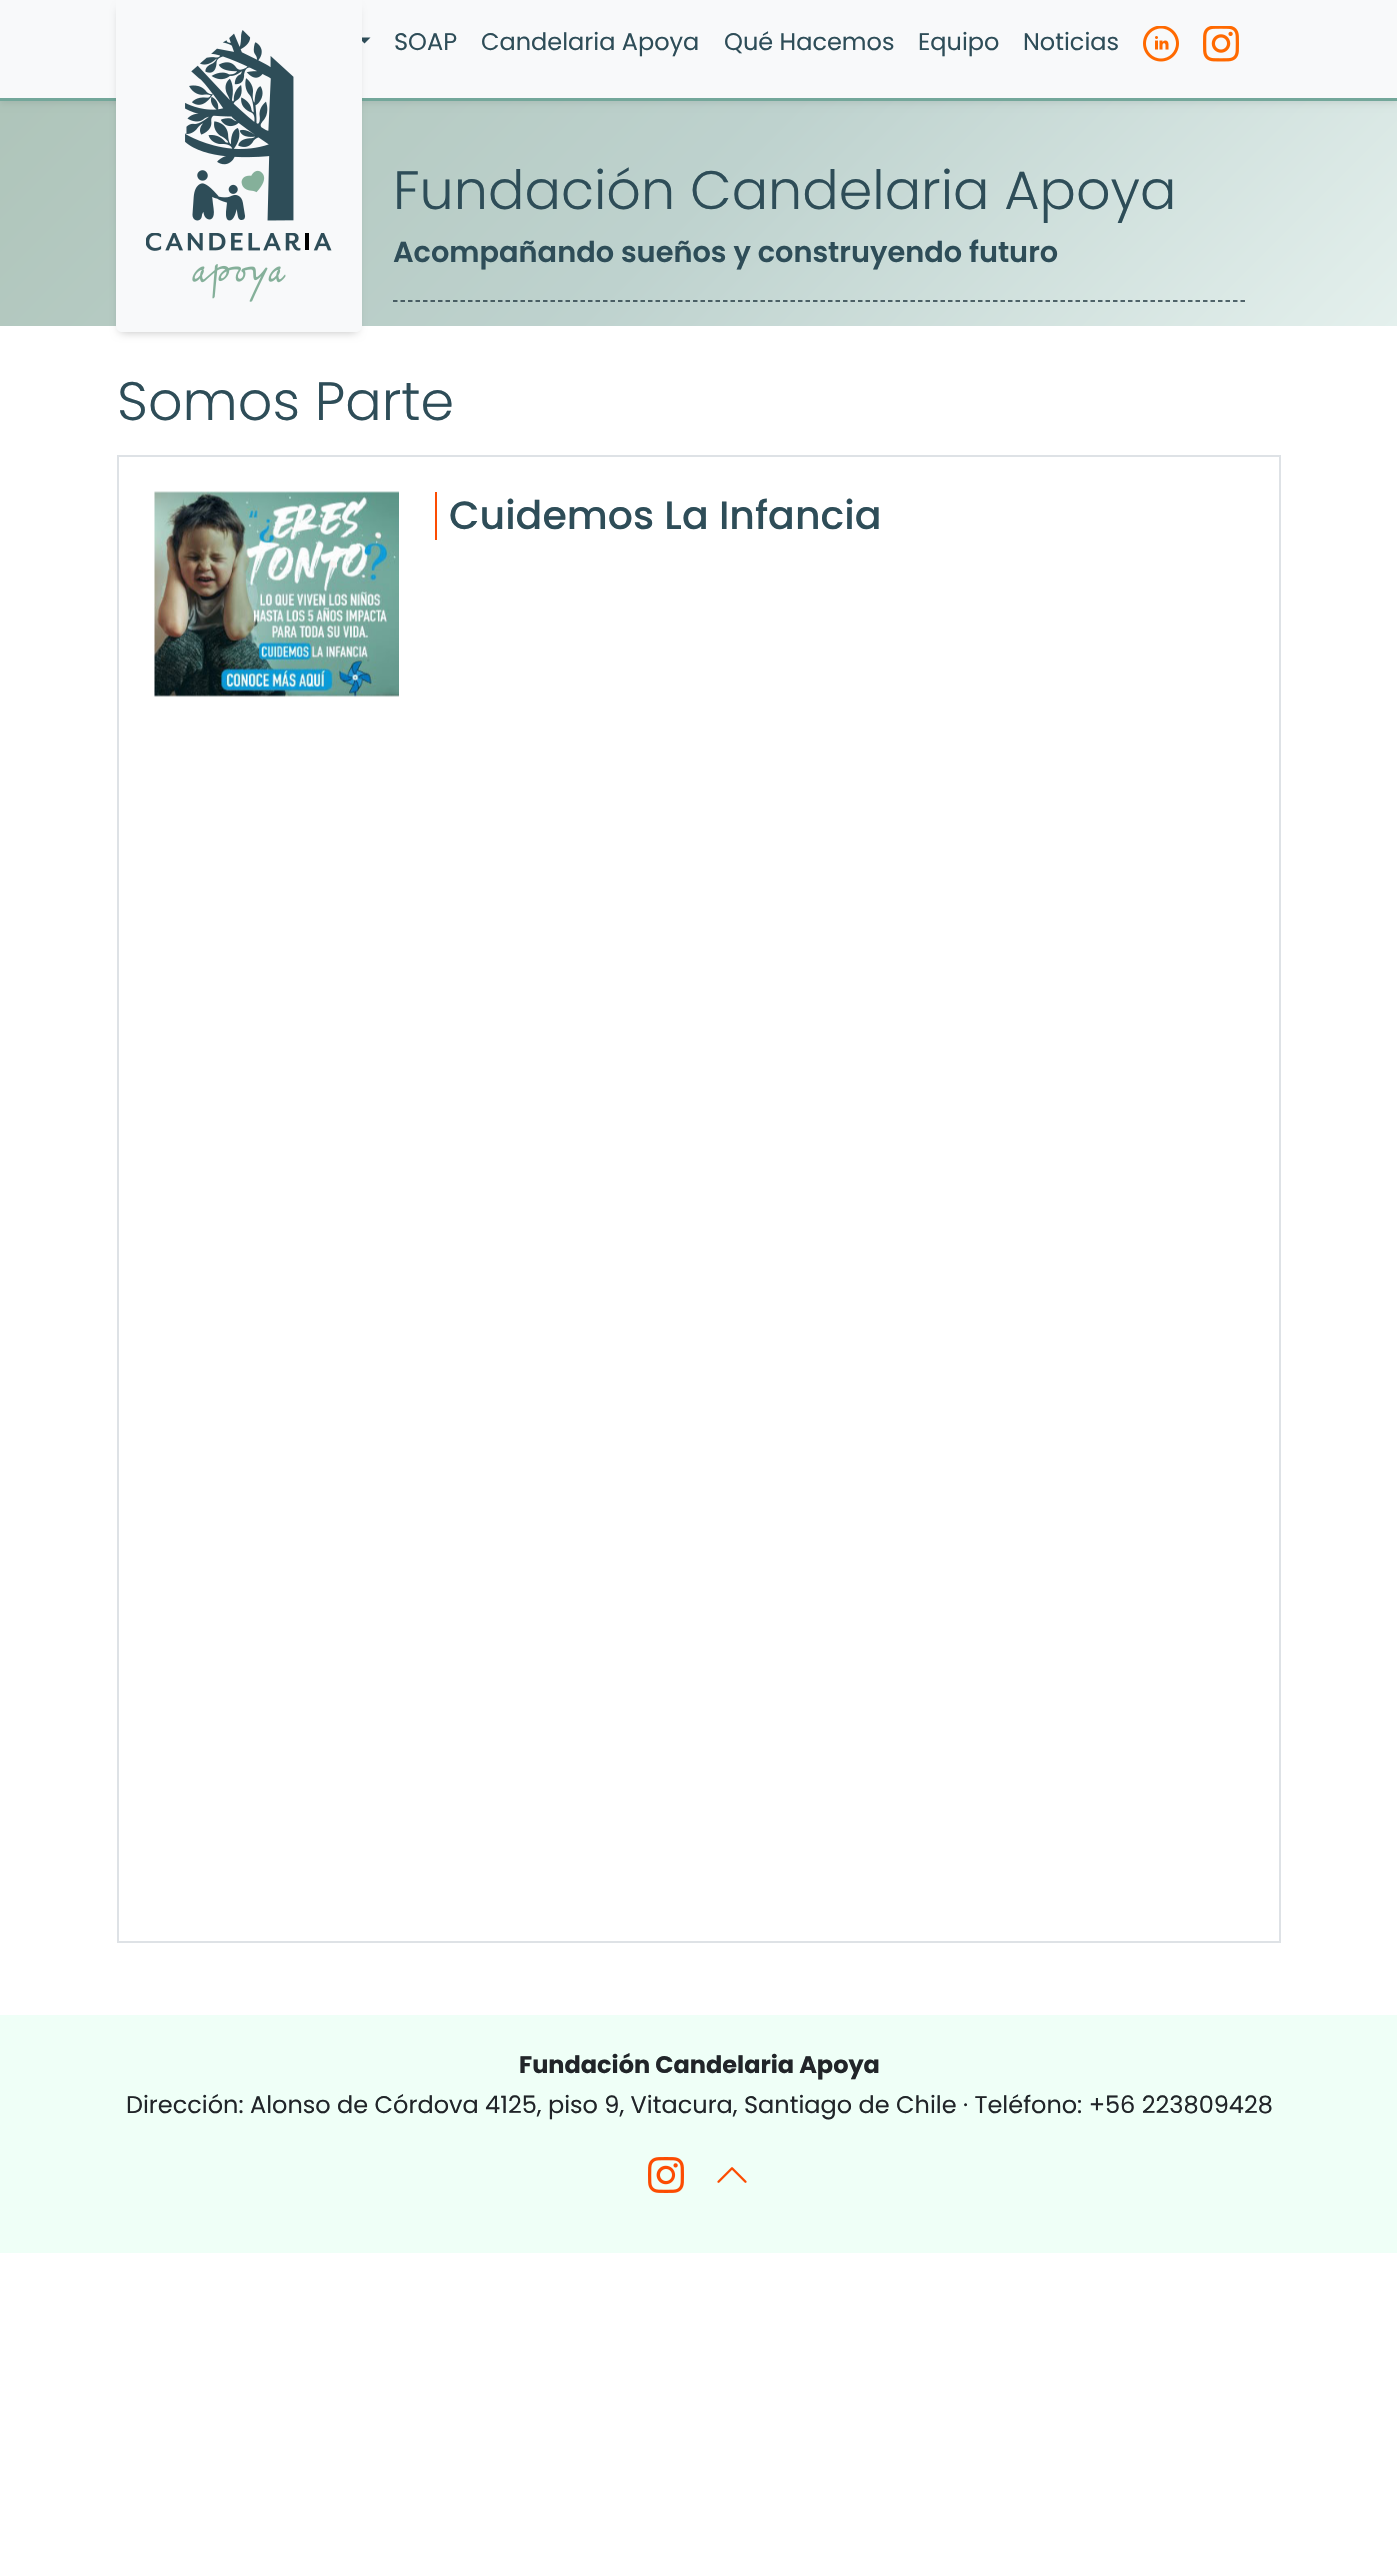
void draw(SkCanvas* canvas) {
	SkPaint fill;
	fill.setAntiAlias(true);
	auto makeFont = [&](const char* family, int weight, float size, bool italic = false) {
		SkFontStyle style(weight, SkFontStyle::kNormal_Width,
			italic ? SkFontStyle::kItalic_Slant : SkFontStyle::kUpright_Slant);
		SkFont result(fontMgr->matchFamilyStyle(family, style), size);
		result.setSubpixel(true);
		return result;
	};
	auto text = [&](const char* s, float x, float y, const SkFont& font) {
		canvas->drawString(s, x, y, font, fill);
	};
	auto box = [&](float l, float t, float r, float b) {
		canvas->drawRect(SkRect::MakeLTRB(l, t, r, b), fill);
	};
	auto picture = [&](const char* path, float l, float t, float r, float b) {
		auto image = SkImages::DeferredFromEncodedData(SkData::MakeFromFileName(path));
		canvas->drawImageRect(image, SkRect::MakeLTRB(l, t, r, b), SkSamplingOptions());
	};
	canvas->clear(0xFFFFFFFF);
	{
		const SkColor colors[] = {0xFFAEC4B9, 0xFFBED2CE, 0xFFE4F0ED};
		const float stops[] = {0, 0.5f, 1};
		const SkPoint ends[] = {{286, -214}, {1112, 612}};
		fill.setShader(SkGradientShader::MakeLinear(ends, colors, stops, 3, SkTileMode::kClamp));
		fill.setAlpha(255);
	}
	box(0, 101, 1397, 326);
	fill.setShader(nullptr);
	fill.setColor(0x12000000);
	fill.setMaskFilter(SkMaskFilter::MakeBlur(kNormal_SkBlurStyle, 3));
	canvas->drawRect(SkRect::MakeLTRB(0, 3, 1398, 104), fill);
	fill.setMaskFilter(nullptr);
	fill.setColor(0xFFF8F9FA);
	box(0, 0, 1397, 98);
	fill.setColor(0xFF73A79A);
	box(0, 98, 1397, 101);
	fill.setColor(0xFF2E4D58);
	canvas->drawPath(SkPathBuilder().moveTo(358.5f, 37.5f).lineTo(370.5f, 37.5f).lineTo(364.5f, 43.5f).close().detach(), fill);
	fill.setColor(0x40000000);
	fill.setMaskFilter(SkMaskFilter::MakeBlur(kNormal_SkBlurStyle, 5));
	canvas->drawRoundRect(SkRect::MakeLTRB(120, 9, 357, 332), 1.5f, 1.5f, fill);
	fill.setMaskFilter(nullptr);
	fill.setColor(0xFFF8F9FA);
	canvas->drawPath(SkPathBuilder().moveTo(116, 0).lineTo(362, 0).lineTo(362, 326).cubicTo(362, 329.5f, 359.5f, 332, 356, 332).lineTo(122, 332).cubicTo(118.5f, 332, 116, 329.5f, 116, 326).close().detach(), fill);
	picture("image0.png", 185, 30, 294, 221);
	picture("image1.png", 146, 233, 332, 302);
	picture("image2.png", 1143, 26, 1179, 62);
	picture("image3.png", 1203, 26, 1239, 62);
	fill.setStyle(SkPaint::kStroke_Style);
	fill.setStrokeWidth(1.5f);
	fill.setColor(0xFF223841);
	fill.setPathEffect(SkDashPathEffect::Make({{4.5f, 3}}, 0));
	canvas->drawPath(SkPathBuilder().moveTo(393, 301).lineTo(1245, 301).detach(), fill);
	fill.setPathEffect(nullptr);
	fill.setStrokeWidth(2);
	fill.setColor(0xFFDEE2E6);
	canvas->drawRect(SkRect::MakeLTRB(118, 456, 1280, 1942), fill);
	picture("image4.png", 154, 491, 399, 697);
	fill.setStyle(SkPaint::kFill_Style);
	fill.setColor(0xFFFC4C02);
	box(435, 492, 437, 540);
	fill.setColor(0xFFEFFFF7);
	box(0, 2015, 1397, 2253);
	picture("image5.png", 648, 2157, 684, 2193);
	picture("image6.png", 717, 2167, 747, 2183);
	auto font1 = makeFont("Poppins", 400, 24);
	fill.setColor(0xFF2E4D58);
	text("SOAP", 394, 50, font1);
	text("Candelaria Apoya", 481, 50, font1);
	text("Qué Hacemos", 724, 50, font1);
	text("Equipo", 918, 50, font1);
	text("Noticias", 1023, 50, font1);
	auto font2 = makeFont("Poppins", 300, 54);
	text("Fundación Candelaria Apoya", 393, 209, font2);
	auto font3 = makeFont("Poppins", 600, 28.8f);
	text("Acompañando sueños y construyendo futuro", 393, 262, font3);
	text("Somos Parte", 117, 420, font2);
	auto font4 = makeFont("Poppins", 500, 39.5f);
	text("Cuidemos La Infancia", 449, 529, font4);
	auto font5 = makeFont("Poppins", 700, 24);
	fill.setColor(0xFF212529);
	text("Fundación Candelaria Apoya", 519, 2073, font5);
	text("Dirección: Alonso de Córdova 4125, piso 9, Vitacura, Santiago de Chile · Teléfono: +56 223809428", 126, 2113, font1);
}
